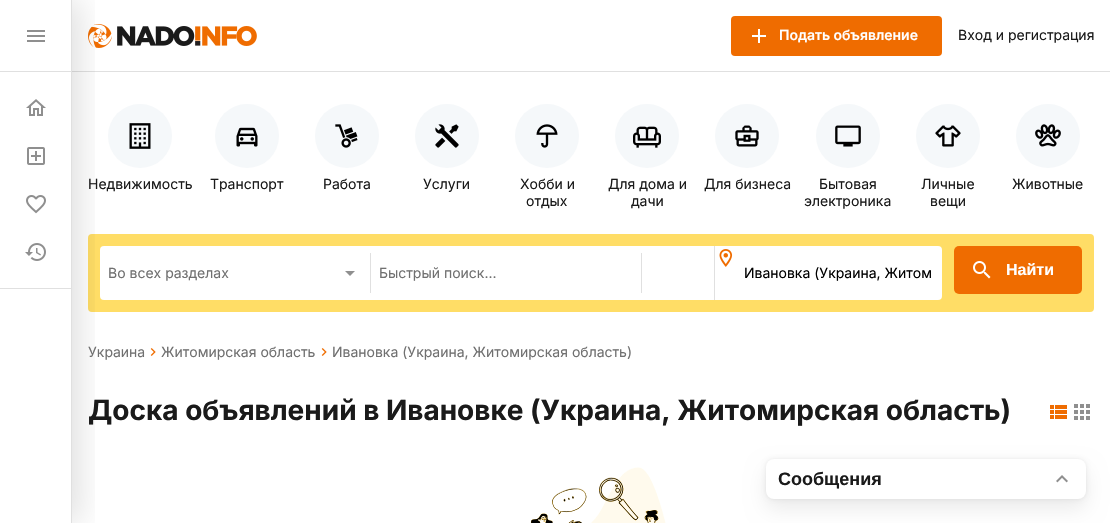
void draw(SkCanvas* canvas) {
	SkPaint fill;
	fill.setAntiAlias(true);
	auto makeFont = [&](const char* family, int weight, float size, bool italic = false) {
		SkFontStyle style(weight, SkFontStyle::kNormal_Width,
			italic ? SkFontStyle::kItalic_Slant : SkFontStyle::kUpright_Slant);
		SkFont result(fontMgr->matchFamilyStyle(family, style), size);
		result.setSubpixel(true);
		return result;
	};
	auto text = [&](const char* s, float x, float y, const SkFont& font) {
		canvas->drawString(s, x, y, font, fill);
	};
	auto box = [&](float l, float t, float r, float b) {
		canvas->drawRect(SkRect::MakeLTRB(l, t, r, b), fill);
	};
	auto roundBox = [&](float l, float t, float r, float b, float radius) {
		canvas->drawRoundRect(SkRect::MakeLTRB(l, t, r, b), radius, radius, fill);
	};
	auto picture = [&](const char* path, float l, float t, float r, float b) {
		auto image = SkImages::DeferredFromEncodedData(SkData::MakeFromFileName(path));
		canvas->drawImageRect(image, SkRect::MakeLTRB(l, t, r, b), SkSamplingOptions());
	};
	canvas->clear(0xFFFFFFFF);
	fill.setColor(0xFFE0E0E0);
	box(72, 71, 1110, 72);
	picture("image5.png", 88, 24, 257, 48);
	fill.setColor(0xFFF5F8FA);
	canvas->drawCircle(140, 136, 32, fill);
	fill.setColor(0xFFFFDD66);
	roundBox(88, 234, 1094, 312, 4);
	fill.setColor(0xFFFFFFFF);
	roundBox(100, 246, 942, 300, 4);
	canvas->save();
	canvas->clipRect(SkRect::MakeLTRB(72, 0, 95, 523));
	fill.setColor(0x1F000000);
	fill.setMaskFilter(SkMaskFilter::MakeBlur(kNormal_SkBlurStyle, 16));
	canvas->drawRect(SkRect::MakeLTRB(8, 0, 80, 523), fill);
	fill.setMaskFilter(nullptr);
	canvas->restore();
	fill.setColor(0xFFE0E0E0);
	box(71, 0, 72, 523);
	box(0, 71, 71, 72);
	picture("image0.png", 27, 30, 45, 42);
	box(0, 288, 71, 289);
	picture("image1.png", 26, 99, 46, 116);
	picture("image2.png", 27, 147, 45, 165);
	picture("image3.png", 26, 195, 46, 214);
	picture("image4.png", 25, 243, 46, 261);
	fill.setColor(0xFFEF6C00);
	roundBox(731, 16, 942, 56, 4);
	picture("image6.png", 752, 29, 766, 43);
	picture("image7.png", 129, 123, 151, 149);
	fill.setColor(0xFFF5F8FA);
	canvas->drawCircle(247, 136, 32, fill);
	picture("image8.png", 236, 127, 258, 147);
	canvas->drawCircle(347, 136, 32, fill);
	picture("image9.png", 335, 124, 358, 148);
	canvas->drawCircle(447, 136, 32, fill);
	picture("image10.png", 435, 124, 459, 148);
	canvas->drawCircle(547, 136, 32, fill);
	picture("image11.png", 536, 124, 558, 148);
	canvas->drawCircle(647, 136, 32, fill);
	picture("image12.png", 633, 126, 661, 148);
	canvas->drawCircle(747, 136, 32, fill);
	picture("image13.png", 735, 125, 759, 147);
	canvas->drawCircle(848, 136, 32, fill);
	picture("image14.png", 835, 125, 861, 147);
	canvas->drawCircle(948, 136, 32, fill);
	picture("image15.png", 935, 125, 961, 147);
	canvas->drawCircle(1048, 136, 32, fill);
	picture("image16.png", 1035, 124, 1061, 147);
	fill.setColor(0xFFE0E0E0);
	box(370, 253, 371, 293);
	fill.setColor(0xFF8F8F8F);
	canvas->drawPath(SkPathBuilder().moveTo(345, 271).lineTo(350, 276).lineTo(355, 271).close().detach(), fill);
	fill.setColor(0xFFE0E0E0);
	box(641, 253, 642, 293);
	box(714, 246, 715, 300);
	picture("image17.png", 719, 249, 733, 267);
	fill.setColor(0xFFEF6C00);
	roundBox(954, 246, 1082, 294, 5);
	picture("image18.png", 973, 261, 991, 279);
	picture("image19.png", 150, 348, 156, 356);
	picture("image19.png", 321, 348, 327, 356);
	picture("image20.png", 1050, 405, 1067, 419);
	picture("image21.png", 1074, 404, 1090, 420);
	picture("image22.png", 530, 467, 666, 523);
	fill.setColor(0x14000000);
	fill.setMaskFilter(SkMaskFilter::MakeBlur(kNormal_SkBlurStyle, 10));
	canvas->drawRoundRect(SkRect::MakeLTRB(766, 469, 1086, 509), 8, 8, fill);
	fill.setMaskFilter(nullptr);
	fill.setMaskFilter(SkMaskFilter::MakeBlur(kNormal_SkBlurStyle, 2));
	canvas->drawRoundRect(SkRect::MakeLTRB(766, 459, 1086, 499), 8, 8, fill);
	fill.setMaskFilter(nullptr);
	fill.setColor(0xFFFFFFFF);
	roundBox(766, 459, 1086, 499, 8);
	picture("image23.png", 1056, 475, 1068, 483);
	auto font1 = makeFont("Inter", 600, 14);
	text("Подать объявление", 779, 40, font1);
	auto font2 = makeFont("Inter", 400, 14);
	fill.setColor(0xFF1A1A1A);
	text("Вход и регистрация", 958, 40, font2);
	text("Недвижимость", 88, 189, font2);
	text("Транспорт", 210, 189, font2);
	text("Работа", 323, 189, font2);
	text("Услуги", 423, 189, font2);
	text("Хобби и", 520, 189, font2);
	text("отдых", 526, 206, font2);
	text("Для дома и", 608, 189, font2);
	text("дачи", 631, 206, font2);
	text("Для бизнеса", 704, 189, font2);
	text("Бытовая", 819, 189, font2);
	text("электроника", 804, 206, font2);
	text("Личные", 921, 189, font2);
	text("вещи", 930, 206, font2);
	text("Животные", 1012, 189, font2);
	fill.setColor(0xFF707070);
	text("Во всех разделах", 108, 278, font2);
	text("Быстрый поиск...", 379, 278, font2);
	fill.setColor(0xFF000000);
	text("Ивановка (Украина, Житом", 744, 278, font2);
	auto font3 = makeFont("Liberation Sans", 700, 16);
	fill.setColor(0xFFFFFFFF);
	text("Найти", 1006, 275, font3);
	fill.setColor(0xFF707070);
	text("Украина", 88, 357, font2);
	text("Житомирская область", 161, 357, font2);
	text("Ивановка (Украина, Житомирская область)", 332, 357, font2);
	auto font4 = makeFont("Inter", 700, 28);
	fill.setColor(0xFF1A1A1A);
	text("Доска объявлений в Ивановке (Украина, Житомирская область)", 88, 420, font4);
	auto font5 = makeFont("Liberation Sans", 700, 18);
	text("Сообщения", 778, 485, font5);
}
